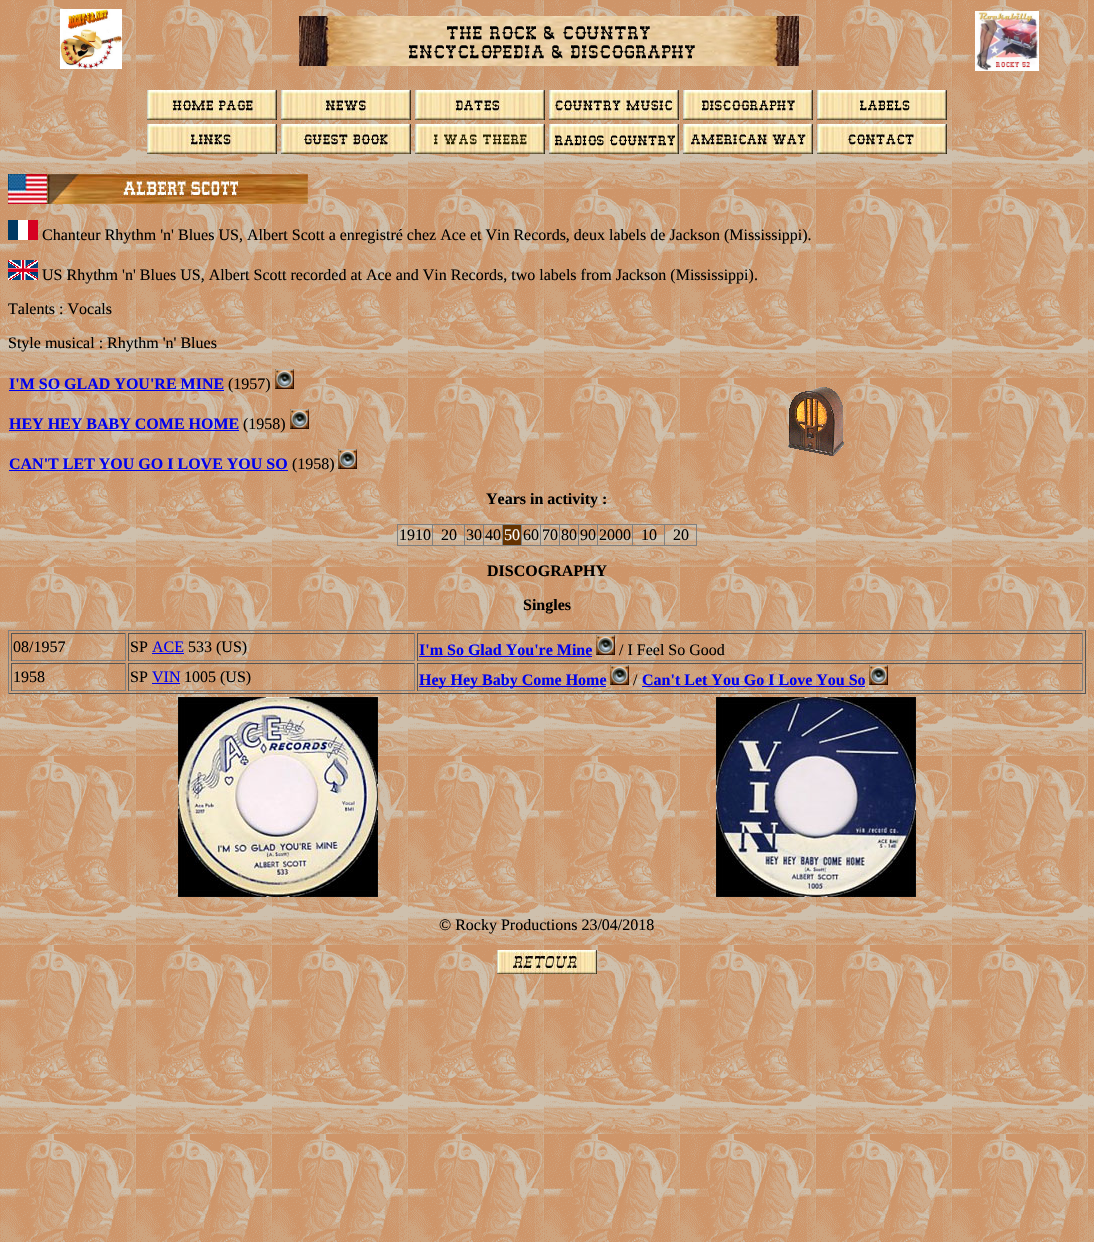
void draw(SkCanvas* canvas) {
	SkPaint fill;
	fill.setAntiAlias(true);
	auto makeFont = [&](const char* family, int weight, float size, bool italic = false) {
		SkFontStyle style(weight, SkFontStyle::kNormal_Width,
			italic ? SkFontStyle::kItalic_Slant : SkFontStyle::kUpright_Slant);
		SkFont result(fontMgr->matchFamilyStyle(family, style), size);
		result.setSubpixel(true);
		return result;
	};
	auto text = [&](const char* s, float x, float y, const SkFont& font) {
		canvas->drawString(s, x, y, font, fill);
	};
	auto box = [&](float l, float t, float r, float b) {
		canvas->drawRect(SkRect::MakeLTRB(l, t, r, b), fill);
	};
	auto picture = [&](const char* path, float l, float t, float r, float b) {
		auto image = SkImages::DeferredFromEncodedData(SkData::MakeFromFileName(path));
		canvas->drawImageRect(image, SkRect::MakeLTRB(l, t, r, b), SkSamplingOptions());
	};
	canvas->clear(0xFFFFFFFF);
	picture("image0.png", 0, 0, 1094, 1242);
	picture("image1.png", 60, 9, 122, 69);
	picture("image2.png", 299, 16, 799, 66);
	picture("image3.png", 975, 11, 1039, 71);
	picture("image4.png", 147, 90, 277, 120);
	picture("image5.png", 281, 90, 411, 120);
	picture("image6.png", 415, 90, 545, 120);
	picture("image7.png", 549, 90, 679, 120);
	picture("image8.png", 683, 90, 813, 120);
	picture("image9.png", 817, 90, 947, 120);
	picture("image10.png", 147, 124, 277, 154);
	picture("image11.png", 281, 124, 411, 154);
	picture("image12.png", 415, 124, 545, 154);
	picture("image13.png", 549, 124, 679, 154);
	picture("image14.png", 683, 124, 813, 154);
	picture("image15.png", 817, 124, 947, 154);
	picture("image16.png", 8, 174, 308, 204);
	picture("image17.png", 8, 220, 38, 240);
	picture("image18.png", 8, 260, 38, 280);
	fill.setColor(0xFF0000EE);
	box(9, 390, 224, 391);
	picture("image19.png", 275, 369, 294, 389);
	box(9, 430, 239, 431);
	picture("image20.png", 290, 409, 309, 429);
	box(9, 470, 288, 471);
	picture("image21.png", 338, 449, 357, 469);
	picture("image22.png", 788, 387, 844, 456);
	fill.setColor(0xFF808080);
	box(397, 524, 697, 525);
	box(696, 524, 697, 546);
	box(397, 545, 697, 546);
	box(397, 524, 398, 546);
	box(432, 524, 433, 546);
	box(464, 524, 465, 546);
	box(483, 524, 484, 546);
	fill.setColor(0xFF663300);
	box(503, 525, 521, 545);
	fill.setColor(0xFF808080);
	box(502, 524, 503, 546);
	box(521, 524, 522, 546);
	box(540, 524, 541, 546);
	box(559, 524, 560, 546);
	box(578, 524, 579, 546);
	box(597, 524, 598, 546);
	box(632, 524, 633, 546);
	box(664, 524, 665, 546);
	box(8, 630, 1086, 631);
	fill.setColor(0xFF555555);
	box(1085, 630, 1086, 694);
	box(8, 693, 1086, 694);
	fill.setColor(0xFF808080);
	box(8, 630, 9, 694);
	fill.setColor(0xFF555555);
	box(11, 633, 126, 634);
	fill.setColor(0xFF808080);
	box(125, 633, 126, 661);
	box(11, 660, 126, 661);
	fill.setColor(0xFF555555);
	box(11, 633, 12, 661);
	box(128, 633, 415, 634);
	fill.setColor(0xFF808080);
	box(414, 633, 415, 661);
	box(128, 660, 415, 661);
	fill.setColor(0xFF555555);
	box(128, 633, 129, 661);
	fill.setColor(0xFF0000EE);
	box(152, 653, 184, 654);
	fill.setColor(0xFF555555);
	box(417, 633, 1083, 634);
	fill.setColor(0xFF808080);
	box(1082, 633, 1083, 661);
	box(417, 660, 1083, 661);
	fill.setColor(0xFF555555);
	box(417, 633, 418, 661);
	fill.setColor(0xFF0000EE);
	box(419, 656, 592, 657);
	picture("image19.png", 596, 635, 615, 655);
	fill.setColor(0xFF555555);
	box(11, 663, 126, 664);
	fill.setColor(0xFF808080);
	box(125, 663, 126, 691);
	box(11, 690, 126, 691);
	fill.setColor(0xFF555555);
	box(11, 663, 12, 691);
	box(128, 663, 415, 664);
	fill.setColor(0xFF808080);
	box(414, 663, 415, 691);
	box(128, 690, 415, 691);
	fill.setColor(0xFF555555);
	box(128, 663, 129, 691);
	fill.setColor(0xFF0000EE);
	box(152, 683, 180, 684);
	fill.setColor(0xFF555555);
	box(417, 663, 1083, 664);
	fill.setColor(0xFF808080);
	box(1082, 663, 1083, 691);
	box(417, 690, 1083, 691);
	fill.setColor(0xFF555555);
	box(417, 663, 418, 691);
	fill.setColor(0xFF0000EE);
	box(419, 686, 606, 687);
	picture("image21.png", 610, 665, 629, 685);
	box(642, 686, 865, 687);
	picture("image21.png", 869, 665, 888, 685);
	picture("image23.png", 178, 697, 378, 897);
	picture("image24.png", 716, 697, 916, 897);
	picture("image25.png", 497, 950, 597, 974);
	auto font1 = makeFont("Liberation Serif", 400, 16);
	fill.setColor(0xFF000000);
	text("Chanteur Rhythm 'n' Blues US, Albert Scott a enregistré chez Ace et Vin Records, deux labels de Jackson (Mississippi).", 42, 240, font1);
	text("US Rhythm 'n' Blues US, Albert Scott recorded at Ace and Vin Records, two labels from Jackson (Mississippi).", 42, 280, font1);
	text("Talents : Vocals", 8, 314, font1);
	text("Style musical : Rhythm 'n' Blues", 8, 348, font1);
	auto font2 = makeFont("Liberation Serif", 700, 16);
	fill.setColor(0xFF0000EE);
	text("I'M SO GLAD YOU'RE MINE", 9, 389, font2);
	fill.setColor(0xFF000000);
	text("(1957)", 228, 389, font1);
	fill.setColor(0xFF0000EE);
	text("HEY HEY BABY COME HOME", 9, 429, font2);
	fill.setColor(0xFF000000);
	text("(1958)", 243, 429, font1);
	fill.setColor(0xFF0000EE);
	text("CAN'T LET YOU GO I LOVE YOU SO", 9, 469, font2);
	fill.setColor(0xFF000000);
	text("(1958)", 292, 469, font1);
	text("Years in activity :", 486, 504, font2);
	text("1910", 399, 540, font1);
	text("20", 441, 540, font1);
	text("30", 466, 540, font1);
	text("40", 485, 540, font1);
	fill.setColor(0xFFFFFFFF);
	text("50", 504, 540, font1);
	fill.setColor(0xFF000000);
	text("60", 523, 540, font1);
	text("70", 542, 540, font1);
	text("80", 561, 540, font1);
	text("90", 580, 540, font1);
	text("2000", 599, 540, font1);
	text("10", 641, 540, font1);
	text("20", 673, 540, font1);
	text("DISCOGRAPHY", 487, 576, font2);
	text("Singles", 523, 610, font2);
	text("08/1957", 13, 652, font1);
	text("SP", 130, 652, font1);
	fill.setColor(0xFF0000EE);
	text("ACE", 152, 652, font1);
	fill.setColor(0xFF000000);
	text("533 (US)", 188, 652, font1);
	fill.setColor(0xFF0000EE);
	text("I'm So Glad You're Mine", 419, 655, font2);
	fill.setColor(0xFF000000);
	text("/ I Feel So Good", 619, 655, font1);
	text("1958", 13, 682, font1);
	text("SP", 130, 682, font1);
	fill.setColor(0xFF0000EE);
	text("VIN", 152, 682, font1);
	fill.setColor(0xFF000000);
	text("1005 (US)", 184, 682, font1);
	fill.setColor(0xFF0000EE);
	text("Hey Hey Baby Come Home", 419, 685, font2);
	fill.setColor(0xFF000000);
	text("/", 633, 685, font1);
	fill.setColor(0xFF0000EE);
	text("Can't Let You Go I Love You So", 642, 685, font2);
	fill.setColor(0xFF000000);
	text("© Rocky Productions 23/04/2018", 439, 930, font1);
}
